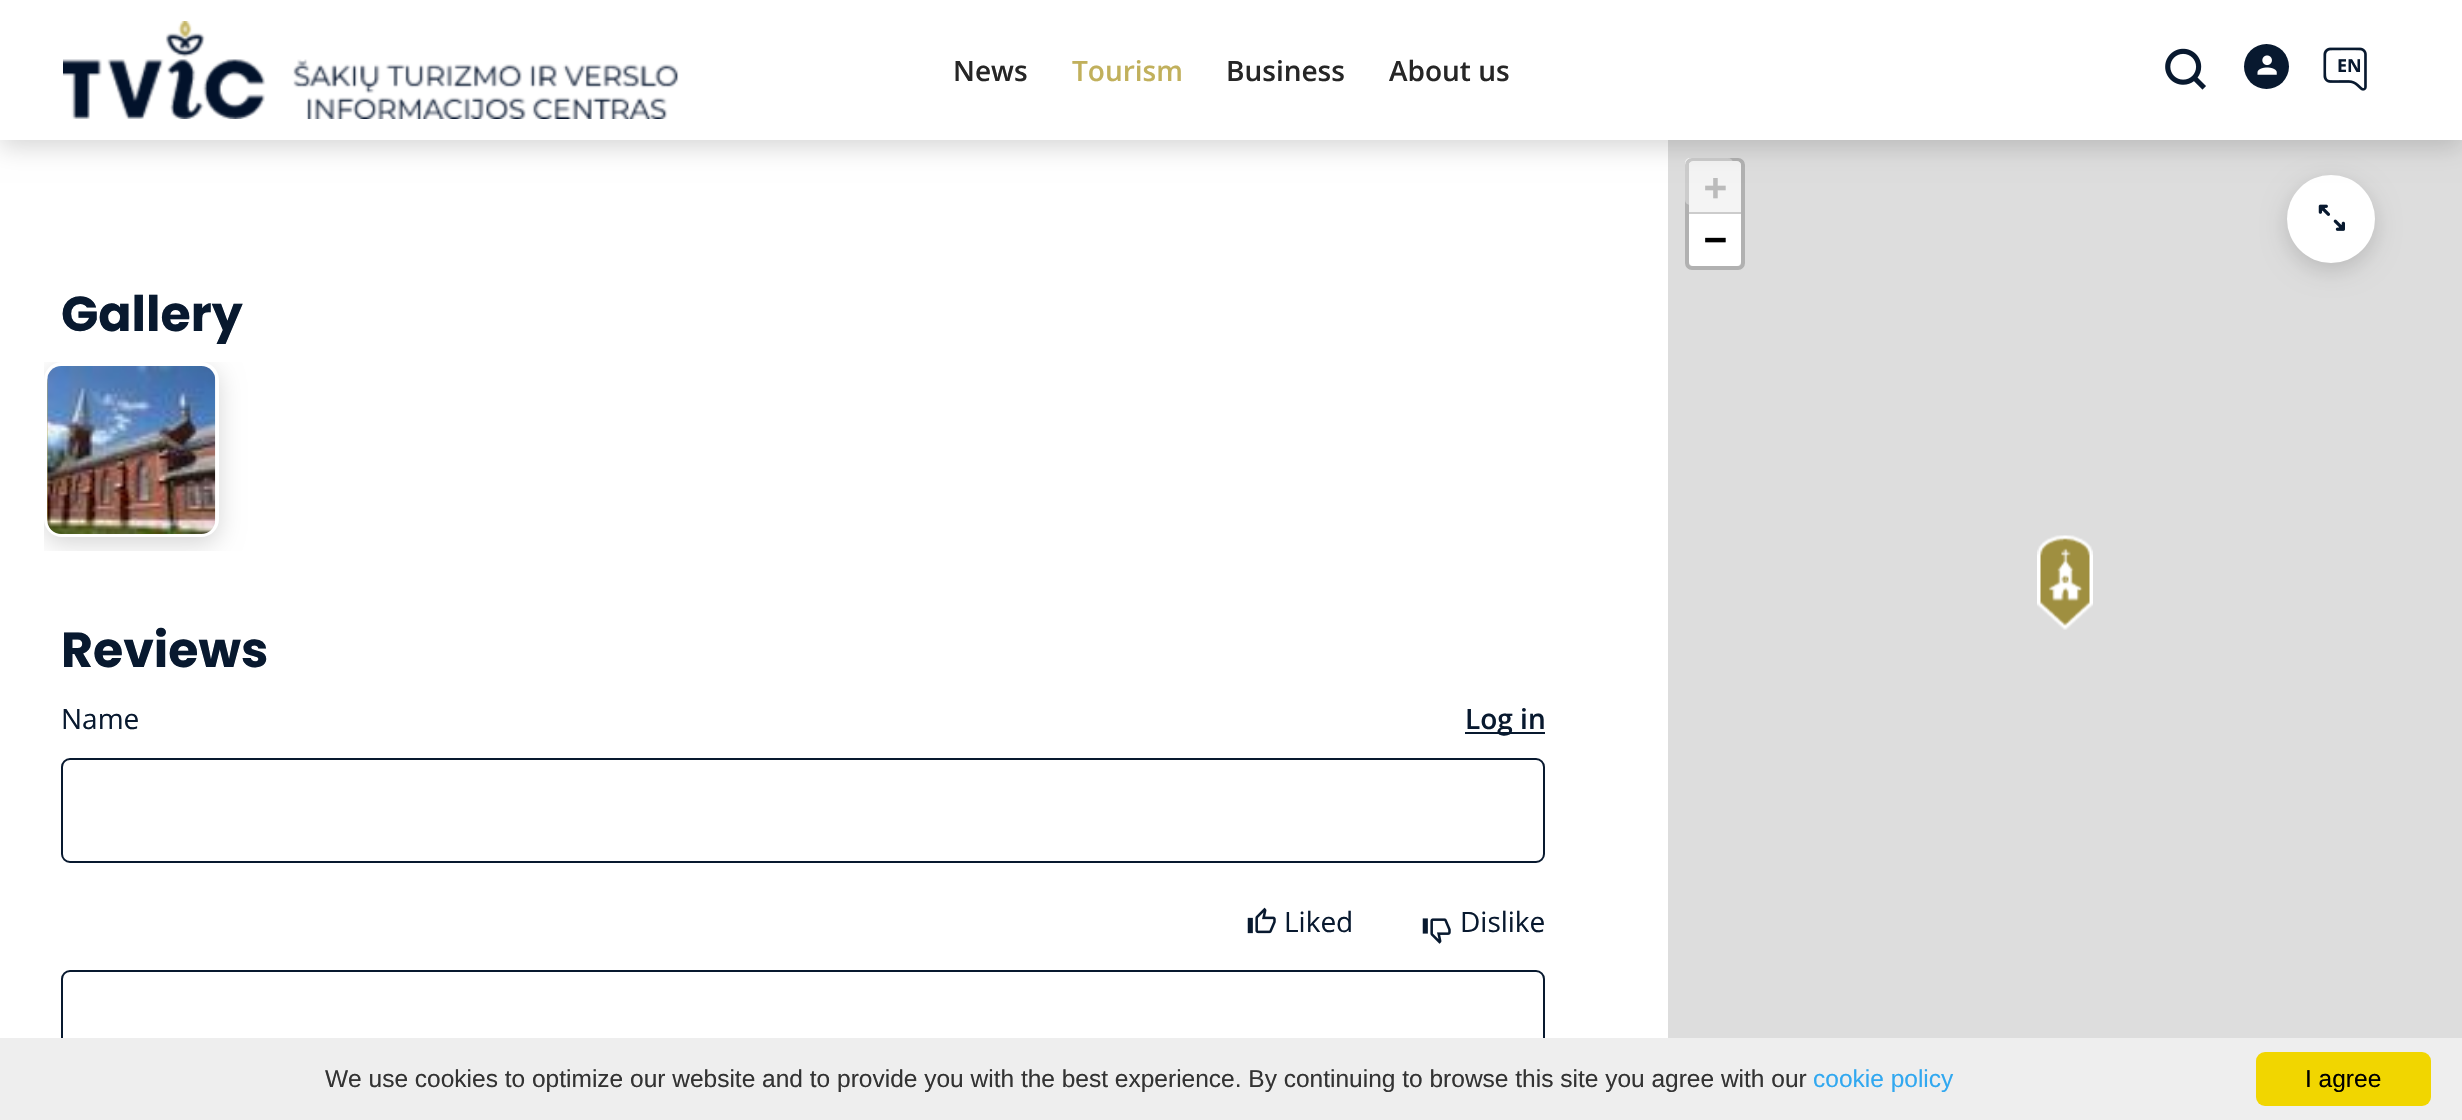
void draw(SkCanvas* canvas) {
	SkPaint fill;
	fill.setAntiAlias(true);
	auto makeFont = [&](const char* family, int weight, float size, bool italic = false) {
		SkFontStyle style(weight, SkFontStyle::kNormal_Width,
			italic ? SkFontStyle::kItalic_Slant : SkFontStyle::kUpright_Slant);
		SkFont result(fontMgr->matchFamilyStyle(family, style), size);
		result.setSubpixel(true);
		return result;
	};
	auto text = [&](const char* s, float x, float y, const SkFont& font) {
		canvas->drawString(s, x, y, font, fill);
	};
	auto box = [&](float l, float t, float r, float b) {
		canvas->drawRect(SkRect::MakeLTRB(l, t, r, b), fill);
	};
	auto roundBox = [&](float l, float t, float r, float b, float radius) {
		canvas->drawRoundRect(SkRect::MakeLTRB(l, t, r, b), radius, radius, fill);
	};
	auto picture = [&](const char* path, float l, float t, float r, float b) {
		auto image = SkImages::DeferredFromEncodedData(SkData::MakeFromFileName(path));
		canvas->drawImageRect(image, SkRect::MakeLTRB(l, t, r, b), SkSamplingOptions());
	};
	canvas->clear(0xFFFFFFFF);
	fill.setColor(0xFFDDDDDD);
	box(1668, 140, 2462, 1038);
	fill.setColor(0xFFFFFFFF);
	roundBox(1685, 158, 1733, 205, 5);
	fill.setStyle(SkPaint::kStroke_Style);
	fill.setStrokeWidth(4);
	fill.setColor(0x33000000);
	canvas->drawRoundRect(SkRect::MakeLTRB(1687, 160, 1743, 268), 5, 5, fill);
	fill.setStyle(SkPaint::kFill_Style);
	fill.setColor(0xFFF4F4F4);
	canvas->drawPath(SkPathBuilder().moveTo(1693, 161).lineTo(1737, 161).cubicTo(1739, 161, 1741, 163, 1741, 165).lineTo(1741, 214).lineTo(1689, 214).lineTo(1689, 165).cubicTo(1689, 163, 1691, 161, 1693, 161).close().detach(), fill);
	fill.setColor(0x29000000);
	fill.setMaskFilter(SkMaskFilter::MakeBlur(kNormal_SkBlurStyle, 12));
	canvas->drawRoundRect(SkRect::MakeLTRB(2287, 182, 2375, 270), 44, 44, fill);
	fill.setMaskFilter(nullptr);
	fill.setColor(0xFFFFFFFF);
	canvas->drawCircle(2331, 219, 44, fill);
	fill.setColor(0x29000000);
	fill.setMaskFilter(SkMaskFilter::MakeBlur(kNormal_SkBlurStyle, 12));
	canvas->drawRect(SkRect::MakeLTRB(0, 7, 2462, 147), fill);
	fill.setMaskFilter(nullptr);
	fill.setColor(0xFFFFFFFF);
	box(0, 0, 2462, 140);
	picture("image0.png", 63, 21, 679, 119);
	picture("image1.png", 2165, 48, 2206, 90);
	fill.setColor(0xFF08192F);
	canvas->drawCircle(2266.5f, 66.5f, 22.5f, fill);
	picture("image2.png", 2257, 55, 2277, 75);
	fill.setColor(0xFFCCCCCC);
	box(1689, 212, 1741, 214);
	fill.setColor(0xFFFFFFFF);
	canvas->drawPath(SkPathBuilder().moveTo(1689, 214).lineTo(1741, 214).lineTo(1741, 262).cubicTo(1741, 264, 1739, 266, 1737, 266).lineTo(1693, 266).cubicTo(1691, 266, 1689, 264, 1689, 262).close().detach(), fill);
	picture("image4.png", 2037, 535, 2093, 630);
	picture("image5.png", 2318, 204, 2345, 231);
	canvas->save();
	canvas->clipRect(SkRect::MakeLTRB(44, 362, 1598, 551));
	canvas->clipPath(SkPathBuilder(SkPathFillType::kEvenOdd).moveTo(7, 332).lineTo(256, 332).lineTo(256, 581).lineTo(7, 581).close().moveTo(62, 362).lineTo(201, 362).cubicTo(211, 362, 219, 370, 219, 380).lineTo(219, 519).cubicTo(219, 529, 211, 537, 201, 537).lineTo(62, 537).cubicTo(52, 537, 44, 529, 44, 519).lineTo(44, 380).cubicTo(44, 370, 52, 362, 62, 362).close().detach(), true);
	fill.setColor(0x29000000);
	fill.setMaskFilter(SkMaskFilter::MakeBlur(kNormal_SkBlurStyle, 12));
	canvas->drawRoundRect(SkRect::MakeLTRB(44, 369, 219, 544), 18, 18, fill);
	fill.setMaskFilter(nullptr);
	canvas->restore();
	fill.setColor(0xFFC1B05C);
	roundBox(47, 366, 215, 534, 18);
	picture("image6.png", 47, 366, 216, 534);
	fill.setColor(0xFF08192F);
	box(1465, 732, 1545, 734);
	fill.setStyle(SkPaint::kStroke_Style);
	fill.setStrokeWidth(2);
	canvas->drawRoundRect(SkRect::MakeLTRB(62, 759, 1544, 862), 8, 8, fill);
	picture("image7.png", 1247, 907, 1276, 934);
	picture("image8.png", 1422, 918, 1451, 944);
	canvas->drawRoundRect(SkRect::MakeLTRB(62, 971, 1544, 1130), 8, 8, fill);
	fill.setStyle(SkPaint::kFill_Style);
	fill.setColor(0xFFEEEEEE);
	box(0, 1038, 2462, 1120);
	fill.setColor(0xFFF1D600);
	roundBox(2256, 1052, 2431, 1106, 9);
	auto font1 = makeFont("Open Sans", 600, 28);
	fill.setColor(0xFF262626);
	text("News", 953, 81, font1);
	fill.setColor(0xFFC1B05C);
	text("Tourism", 1072, 81, font1);
	fill.setColor(0xFF262626);
	text("Business", 1226, 81, font1);
	text("About us", 1389, 81, font1);
	auto font2 = makeFont("Open Sans", 700, 18);
	fill.setColor(0xFF08192F);
	text("EN", 2337, 72, font2);
	picture("image3.png", 2323, 47, 2367, 91);
	auto font3 = makeFont("DejaVu Sans Mono", 700, 38);
	fill.setColor(0xFFBBBBBB);
	text("+", 1704, 200, font3);
	fill.setColor(0xFF000000);
	text("−", 1704, 252, font3);
	auto font4 = makeFont("Poppins", 700, 49);
	fill.setColor(0xFF08192F);
	text("Gallery", 61, 331, font4);
	text("Reviews", 61, 667, font4);
	auto font5 = makeFont("Open Sans", 400, 28);
	text("Name", 61, 729, font5);
	text("Log in", 1465, 729, font1);
	text("Liked", 1284, 932, font5);
	text("Dislike", 1460, 932, font5);
	auto font6 = makeFont("Liberation Sans", 400, 24.5f);
	fill.setColor(0xFF333333);
	text("We use cookies to optimize our website and to provide you with the best experience. By continuing to browse this site you agree with our", 325, 1087, font6);
	fill.setColor(0xFF31A8F0);
	text("cookie policy", 1813, 1087, font6);
	fill.setColor(0xFF000000);
	text("I agree", 2305, 1087, font6);
}
